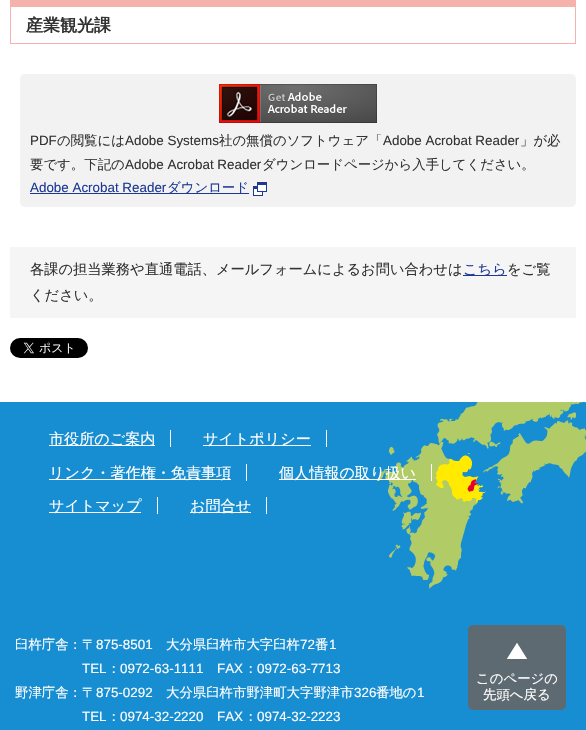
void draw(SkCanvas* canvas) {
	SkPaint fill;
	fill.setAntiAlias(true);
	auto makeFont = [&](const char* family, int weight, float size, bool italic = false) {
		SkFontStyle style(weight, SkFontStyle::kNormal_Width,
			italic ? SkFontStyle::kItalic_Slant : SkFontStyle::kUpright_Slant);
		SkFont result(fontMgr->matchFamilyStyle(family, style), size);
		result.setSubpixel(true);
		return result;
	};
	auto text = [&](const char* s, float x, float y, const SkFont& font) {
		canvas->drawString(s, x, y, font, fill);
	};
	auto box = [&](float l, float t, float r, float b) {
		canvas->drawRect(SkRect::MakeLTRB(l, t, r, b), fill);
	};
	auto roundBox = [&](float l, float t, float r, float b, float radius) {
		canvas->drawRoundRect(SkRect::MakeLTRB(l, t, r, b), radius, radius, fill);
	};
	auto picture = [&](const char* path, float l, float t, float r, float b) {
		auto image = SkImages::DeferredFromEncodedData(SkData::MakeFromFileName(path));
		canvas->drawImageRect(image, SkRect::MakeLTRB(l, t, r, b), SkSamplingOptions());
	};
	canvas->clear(0xFFFFFFFF);
	fill.setColor(0xFFF5B2AC);
	box(10, 0, 576, 7);
	box(575, 7, 576, 44);
	box(10, 43, 576, 44);
	box(10, 7, 11, 44);
	fill.setColor(0xFFF2F2F2);
	roundBox(20, 74, 576, 207, 5);
	picture("image0.png", 219, 84, 377, 123);
	fill.setColor(0xFF1D3994);
	box(30, 193, 249, 194);
	picture("image1.png", 253, 182, 267, 196);
	fill.setColor(0xFFF5F5F5);
	box(10, 247, 576, 318);
	fill.setColor(0xFF1D3994);
	box(463, 275, 507, 276);
	picture("image2.png", 10, 338, 88, 358);
	fill.setColor(0xFF188ED2);
	box(0, 402, 586, 730);
	picture("image3.png", 377, 402, 586, 589);
	fill.setColor(0xFFFEFEFE);
	box(170, 430, 171, 447);
	fill.setColor(0xFFFFFFFF);
	box(49, 445, 155, 446);
	fill.setColor(0xFFFEFEFE);
	box(326, 430, 327, 447);
	fill.setColor(0xFFFFFFFF);
	box(203, 445, 311, 446);
	fill.setColor(0xFFFEFEFE);
	box(246, 464, 247, 481);
	fill.setColor(0xFFFFFFFF);
	box(49, 479, 231, 480);
	fill.setColor(0xFFFEFEFE);
	box(431, 464, 432, 481);
	fill.setColor(0xFFFFFFFF);
	box(279, 479, 416, 480);
	fill.setColor(0xFFFEFEFE);
	box(157, 497, 158, 514);
	fill.setColor(0xFFFFFFFF);
	box(49, 512, 141, 513);
	fill.setColor(0xFFFEFEFE);
	box(266, 497, 267, 514);
	fill.setColor(0xFFFFFFFF);
	box(190, 512, 251, 513);
	fill.setColor(0xFF5E6A71);
	roundBox(468, 625, 566, 710, 5);
	picture("image4.png", 507, 643, 527, 659);
	auto font1 = makeFont("WenQuanYi Zen Hei", 700, 17);
	fill.setColor(0xFF333333);
	text("産業観光課", 26, 31, font1);
	auto font2 = makeFont("Liberation Sans", 400, 13.4f);
	text("PDF", 30, 145, font2);
	auto font3 = makeFont("WenQuanYi Zen Hei", 500, 13.4f);
	text("の閲覧には", 57, 145, font3);
	text("Adobe Systems", 125, 145, font2);
	text("社の無償のソフトウェア「", 219, 145, font3);
	text("Adobe Acrobat Reader", 383, 145, font2);
	text("」が必", 520, 145, font3);
	text("要です。下記の", 30, 169, font3);
	text("Adobe Acrobat Reader", 125, 169, font2);
	text("ダウンロードページから入手してください。", 262, 169, font3);
	fill.setColor(0xFF1D3994);
	text("Adobe Acrobat Reader", 30, 192, font2);
	text("ダウンロード", 167, 192, font3);
	auto font4 = makeFont("WenQuanYi Zen Hei", 500, 14.25f);
	fill.setColor(0xFF333333);
	text("各課の担当業務や直通電話、メールフォームによるお問い合わせは", 30, 274, font4);
	fill.setColor(0xFF1D3994);
	text("こちら", 463, 274, font4);
	fill.setColor(0xFF333333);
	text("をご覧", 507, 274, font4);
	text("ください。", 30, 300, font4);
	auto font5 = makeFont("WenQuanYi Zen Hei", 500, 15.1f);
	fill.setColor(0xFFFFFFFF);
	text("市役所のご案内", 49, 444, font5);
	text("サイトポリシー", 203, 444, font5);
	text("リンク・著作権・免責事項", 49, 478, font5);
	text("個人情報の取り扱い", 279, 478, font5);
	text("サイトマップ", 49, 511, font5);
	text("お問合せ", 190, 511, font5);
	text("臼杵庁舎：〒", 15, 649, font3);
	text("875-8501", 96, 649, font2);
	text("大分県臼杵市大字臼杵", 166, 649, font3);
	text("72", 300, 649, font2);
	text("番", 315, 649, font3);
	text("1", 329, 649, font2);
	text("TEL", 82, 673, font2);
	text("：", 107, 673, font3);
	text("0972-63-1111", 120, 673, font2);
	text("FAX", 217, 673, font2);
	text("：", 244, 673, font3);
	text("0972-63-7713", 257, 673, font2);
	text("野津庁舎：〒", 15, 697, font3);
	text("875-0292", 96, 697, font2);
	text("大分県臼杵市野津町大字野津市", 166, 697, font3);
	text("326", 354, 697, font2);
	text("番地の", 376, 697, font3);
	text("1", 417, 697, font2);
	text("TEL", 82, 721, font2);
	text("：", 107, 721, font3);
	text("0974-32-2220", 120, 721, font2);
	text("FAX", 217, 721, font2);
	text("：", 244, 721, font3);
	text("0974-32-2223", 257, 721, font2);
	text("このページの", 476, 683, font3);
	text("先頭へ戻る", 483, 699, font3);
}
